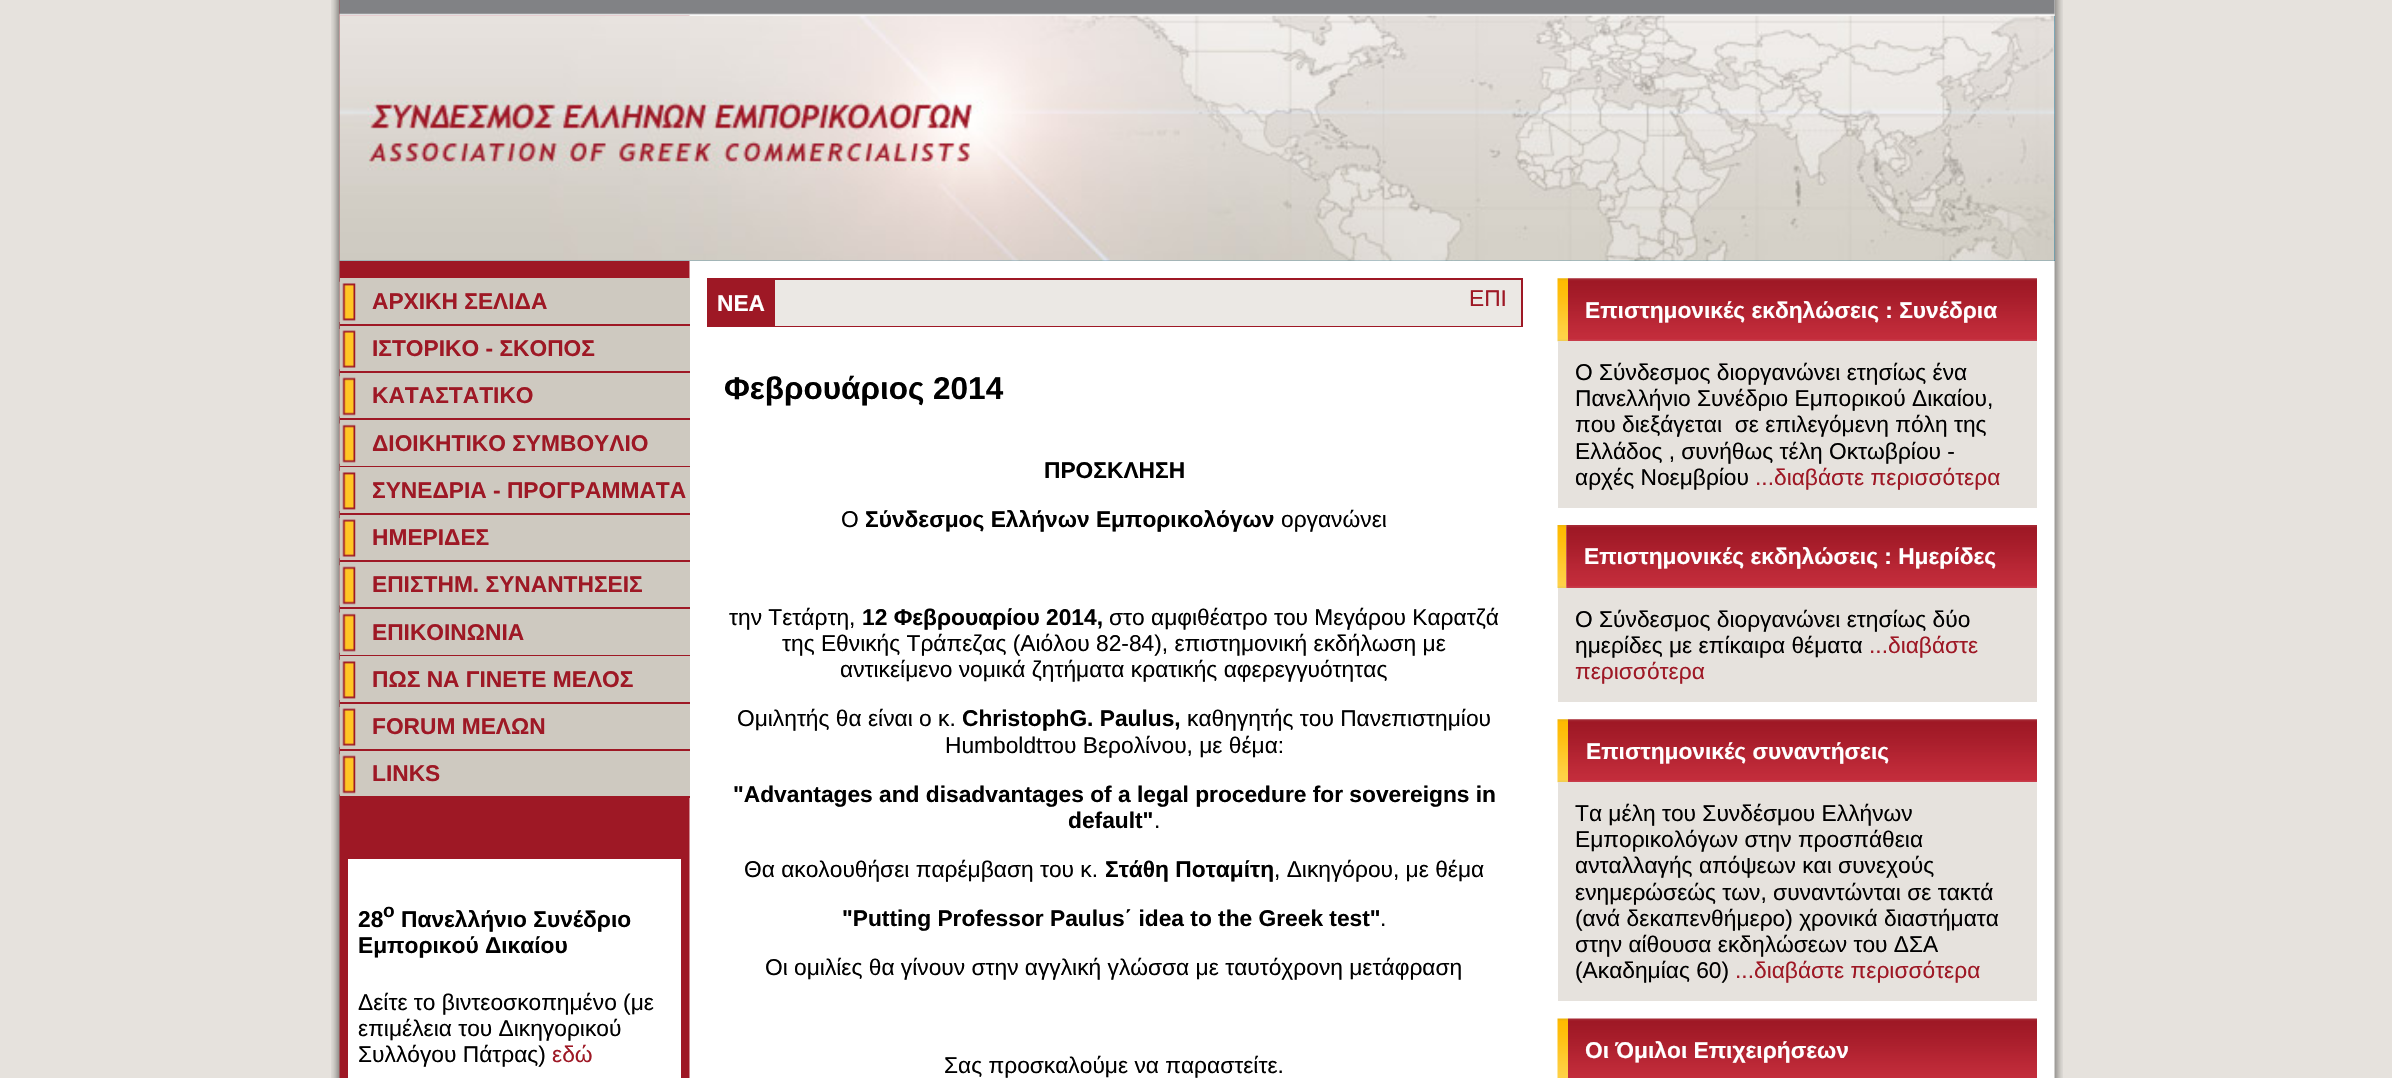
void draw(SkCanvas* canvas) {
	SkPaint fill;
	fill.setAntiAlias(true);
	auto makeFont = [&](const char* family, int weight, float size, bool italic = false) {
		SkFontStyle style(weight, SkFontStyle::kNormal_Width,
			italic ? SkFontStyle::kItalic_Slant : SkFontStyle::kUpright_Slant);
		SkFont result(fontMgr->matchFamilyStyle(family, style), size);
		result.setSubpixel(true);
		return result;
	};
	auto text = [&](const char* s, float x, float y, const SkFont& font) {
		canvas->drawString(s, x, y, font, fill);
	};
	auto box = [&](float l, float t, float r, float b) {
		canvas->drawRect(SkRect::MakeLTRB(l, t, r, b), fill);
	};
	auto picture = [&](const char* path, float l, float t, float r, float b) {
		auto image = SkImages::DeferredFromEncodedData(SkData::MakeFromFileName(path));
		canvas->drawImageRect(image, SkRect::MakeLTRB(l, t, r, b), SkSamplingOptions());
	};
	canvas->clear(0xFFE6E2DD);
	picture("image0.png", 331, 0, 2063, 1078);
	picture("image1.png", 339, 0, 2055, 16);
	fill.setColor(0xFF186F92);
	box(340, 16, 2055, 261);
	picture("image2.png", 339, 15, 2055, 261);
	fill.setColor(0xFFCEC9C0);
	box(340, 278, 690, 324);
	picture("image3.png", 339, 281, 356, 322);
	fill.setColor(0xFF9E1825);
	box(689, 324, 690, 326);
	fill.setColor(0xFFCEC9C0);
	box(340, 326, 690, 371);
	picture("image4.png", 339, 329, 356, 370);
	fill.setColor(0xFF9E1825);
	box(689, 371, 690, 373);
	fill.setColor(0xFFCEC9C0);
	box(340, 373, 690, 418);
	picture("image5.png", 339, 376, 356, 417);
	fill.setColor(0xFF9E1825);
	box(689, 418, 690, 420);
	fill.setColor(0xFFCEC9C0);
	box(340, 420, 690, 466);
	picture("image6.png", 339, 423, 356, 464);
	fill.setColor(0xFF9E1825);
	box(689, 466, 690, 467);
	fill.setColor(0xFFCEC9C0);
	box(340, 467, 690, 513);
	picture("image3.png", 339, 470, 356, 511);
	fill.setColor(0xFF9E1825);
	box(689, 513, 690, 515);
	fill.setColor(0xFFCEC9C0);
	box(340, 515, 690, 560);
	picture("image4.png", 339, 518, 356, 559);
	fill.setColor(0xFF9E1825);
	box(689, 560, 690, 562);
	fill.setColor(0xFFCEC9C0);
	box(340, 562, 690, 607);
	picture("image5.png", 339, 565, 356, 606);
	fill.setColor(0xFF9E1825);
	box(689, 607, 690, 609);
	fill.setColor(0xFFCEC9C0);
	box(340, 609, 690, 655);
	picture("image6.png", 339, 612, 356, 653);
	fill.setColor(0xFF9E1825);
	box(689, 655, 690, 656);
	fill.setColor(0xFFCEC9C0);
	box(340, 656, 690, 702);
	picture("image3.png", 339, 659, 356, 700);
	fill.setColor(0xFF9E1825);
	box(689, 702, 690, 704);
	fill.setColor(0xFFCEC9C0);
	box(340, 704, 690, 749);
	picture("image4.png", 339, 707, 356, 748);
	fill.setColor(0xFF9E1825);
	box(689, 749, 690, 751);
	fill.setColor(0xFFCEC9C0);
	box(340, 751, 690, 796);
	picture("image5.png", 339, 754, 356, 795);
	fill.setColor(0xFF9E1825);
	box(689, 796, 690, 798);
	fill.setColor(0xFFFFFFFF);
	box(348, 859, 681, 1078);
	fill.setColor(0xFF9E1825);
	box(707, 278, 1523, 327);
	fill.setColor(0xFFEBE8E4);
	box(775, 280, 1521, 326);
	picture("image7.png", 1557, 278, 1568, 342);
	picture("image8.png", 1568, 278, 2037, 341);
	fill.setColor(0xFFE6E2DD);
	box(1558, 341, 2037, 508);
	picture("image9.png", 1557, 525, 1567, 588);
	picture("image10.png", 1566, 525, 2037, 588);
	box(1558, 588, 2037, 702);
	picture("image7.png", 1557, 719, 1568, 783);
	picture("image8.png", 1568, 719, 2037, 782);
	box(1558, 782, 2037, 1001);
	picture("image11.png", 1557, 1018, 1568, 1078);
	picture("image12.png", 1568, 1018, 2037, 1078);
	auto font1 = makeFont("Liberation Sans", 700, 22.75f);
	fill.setColor(0xFF9E1825);
	text("ΑΡΧΙΚΗ ΣΕΛΙΔΑ", 372, 309, font1);
	text("ΙΣΤΟΡΙΚΟ - ΣΚΟΠΟΣ", 372, 356, font1);
	text("ΚΑΤΑΣΤΑΤΙΚΟ", 372, 403, font1);
	text("ΔΙΟΙΚΗΤΙΚΟ ΣΥΜΒΟΥΛΙΟ", 372, 451, font1);
	text("ΣΥΝΕΔΡΙΑ - ΠΡΟΓΡΑΜΜΑΤΑ", 372, 498, font1);
	text("ΗΜΕΡΙΔΕΣ", 372, 545, font1);
	text("ΕΠΙΣΤΗΜ. ΣΥΝΑΝΤΗΣΕΙΣ", 372, 592, font1);
	text("ΕΠΙΚΟΙΝΩΝΙΑ", 372, 640, font1);
	text("ΠΩΣ ΝΑ ΓΙΝΕΤΕ ΜΕΛΟΣ", 372, 687, font1);
	text("FORUM ΜΕΛΩΝ", 372, 734, font1);
	text("LINKS", 372, 781, font1);
	fill.setColor(0xFF000000);
	text("28", 358, 927, font1);
	auto font2 = makeFont("Liberation Sans", 700, 19);
	text("ο", 383, 917, font2);
	text("Πανελλήνιο Συνέδριο", 401, 927, font1);
	text("Εμπορικού Δικαίου", 358, 953, font1);
	auto font3 = makeFont("Liberation Sans", 400, 22.75f);
	text("Δείτε το βιντεοσκοπημένο (με", 358, 1010, font3);
	text("επιμέλεια του Δικηγορικού", 358, 1036, font3);
	text("Συλλόγου Πάτρας)", 358, 1062, font3);
	fill.setColor(0xFF9E1825);
	text("εδώ", 552, 1062, font3);
	fill.setColor(0xFFFFFFFF);
	text("ΝΕΑ", 717, 311, font1);
	fill.setColor(0xFF9E1825);
	text("ΕΠΙ", 1469, 306, font3);
	auto font4 = makeFont("Liberation Sans", 700, 31.5f);
	fill.setColor(0xFF000000);
	text("Φεβρουάριος 2014", 724, 399, font4);
	text("ΠΡΟΣΚΛΗΣΗ", 1044, 478, font1);
	text("O", 841, 527, font3);
	text("Σύνδεσμος Ελλήνων Εμπορικολόγων", 865, 527, font1);
	text("οργανώνει", 1281, 527, font3);
	text("την Τετάρτη,", 729, 625, font3);
	text("12 Φεβρουαρίου 2014,", 862, 625, font1);
	text("στο αμφιθέατρο του Μεγάρου Καρατζά", 1109, 625, font3);
	text("της Εθνικής Τράπεζας (Αιόλου 82-84), επιστημονική εκδήλωση με", 782, 651, font3);
	text("αντικείμενο νομικά ζητήματα κρατικής αφερεγγυότητας", 840, 677, font3);
	text("Ομιλητής θα είναι ο κ.", 737, 726, font3);
	text("ChristophG. Paulus,", 962, 726, font1);
	text("καθηγητής του Πανεπιστημίου", 1187, 726, font3);
	text("Humboldtτου Βερολίνου, με θέμα:", 945, 753, font3);
	text("\"Advantages and disadvantages of a legal procedure for sovereigns in", 733, 802, font1);
	text("default\"", 1068, 828, font1);
	text(".", 1154, 828, font3);
	text("Θα ακολουθήσει παρέμβαση του κ.", 744, 877, font3);
	text("Στάθη Ποταμίτη", 1105, 877, font1);
	text(", Δικηγόρου, με θέμα", 1274, 877, font3);
	text("\"Putting Professor Paulus΄ idea to the Greek test\"", 842, 926, font1);
	text(".", 1380, 926, font3);
	text("Οι ομιλίες θα γίνουν στην αγγλική γλώσσα με ταυτόχρονη μετάφραση", 765, 975, font3);
	text("Σας προσκαλούμε να παραστείτε.", 944, 1073, font3);
	fill.setColor(0xFFFFFFFF);
	text("Επιστημονικές εκδηλώσεις : Συνέδρια", 1585, 318, font1);
	fill.setColor(0xFF000000);
	text("Ο Σύνδεσμος διοργανώνει ετησίως ένα", 1575, 380, font3);
	text("Πανελλήνιο Συνέδριο Εμπορικού Δικαίου,", 1575, 406, font3);
	text("που διεξάγεται  σε επιλεγόμενη πόλη της", 1575, 432, font3);
	text("Ελλάδος , συνήθως τέλη Οκτωβρίου -", 1575, 459, font3);
	text("αρχές Νοεμβρίου", 1575, 485, font3);
	fill.setColor(0xFF9E1825);
	text("...διαβάστε περισσότερα", 1755, 485, font3);
	fill.setColor(0xFFFFFFFF);
	text("Επιστημονικές εκδηλώσεις : Ημερίδες", 1584, 564, font1);
	fill.setColor(0xFF000000);
	text("Ο Σύνδεσμος διοργανώνει ετησίως δύο", 1575, 627, font3);
	text("ημερίδες με επίκαιρα θέματα", 1575, 653, font3);
	fill.setColor(0xFF9E1825);
	text("...διαβάστε", 1869, 653, font3);
	text("περισσότερα", 1575, 679, font3);
	fill.setColor(0xFFFFFFFF);
	text("Επιστημονικές συναντήσεις", 1586, 759, font1);
	fill.setColor(0xFF000000);
	text("Τα μέλη του Συνδέσμου Ελλήνων", 1575, 821, font3);
	text("Εμπορικολόγων στην προσπάθεια", 1575, 847, font3);
	text("ανταλλαγής απόψεων και συνεχούς", 1575, 873, font3);
	text("ενημερώσεώς των, συναντώνται σε τακτά", 1575, 900, font3);
	text("(ανά δεκαπενθήμερο) χρονικά διαστήματα", 1575, 926, font3);
	text("στην αίθουσα εκδηλώσεων του ΔΣΑ", 1575, 952, font3);
	text("(Ακαδημίας 60)", 1575, 978, font3);
	fill.setColor(0xFF9E1825);
	text("...διαβάστε περισσότερα", 1735, 978, font3);
	fill.setColor(0xFFFFFFFF);
	text("Οι Όμιλοι Επιχειρήσεων", 1585, 1058, font1);
}
